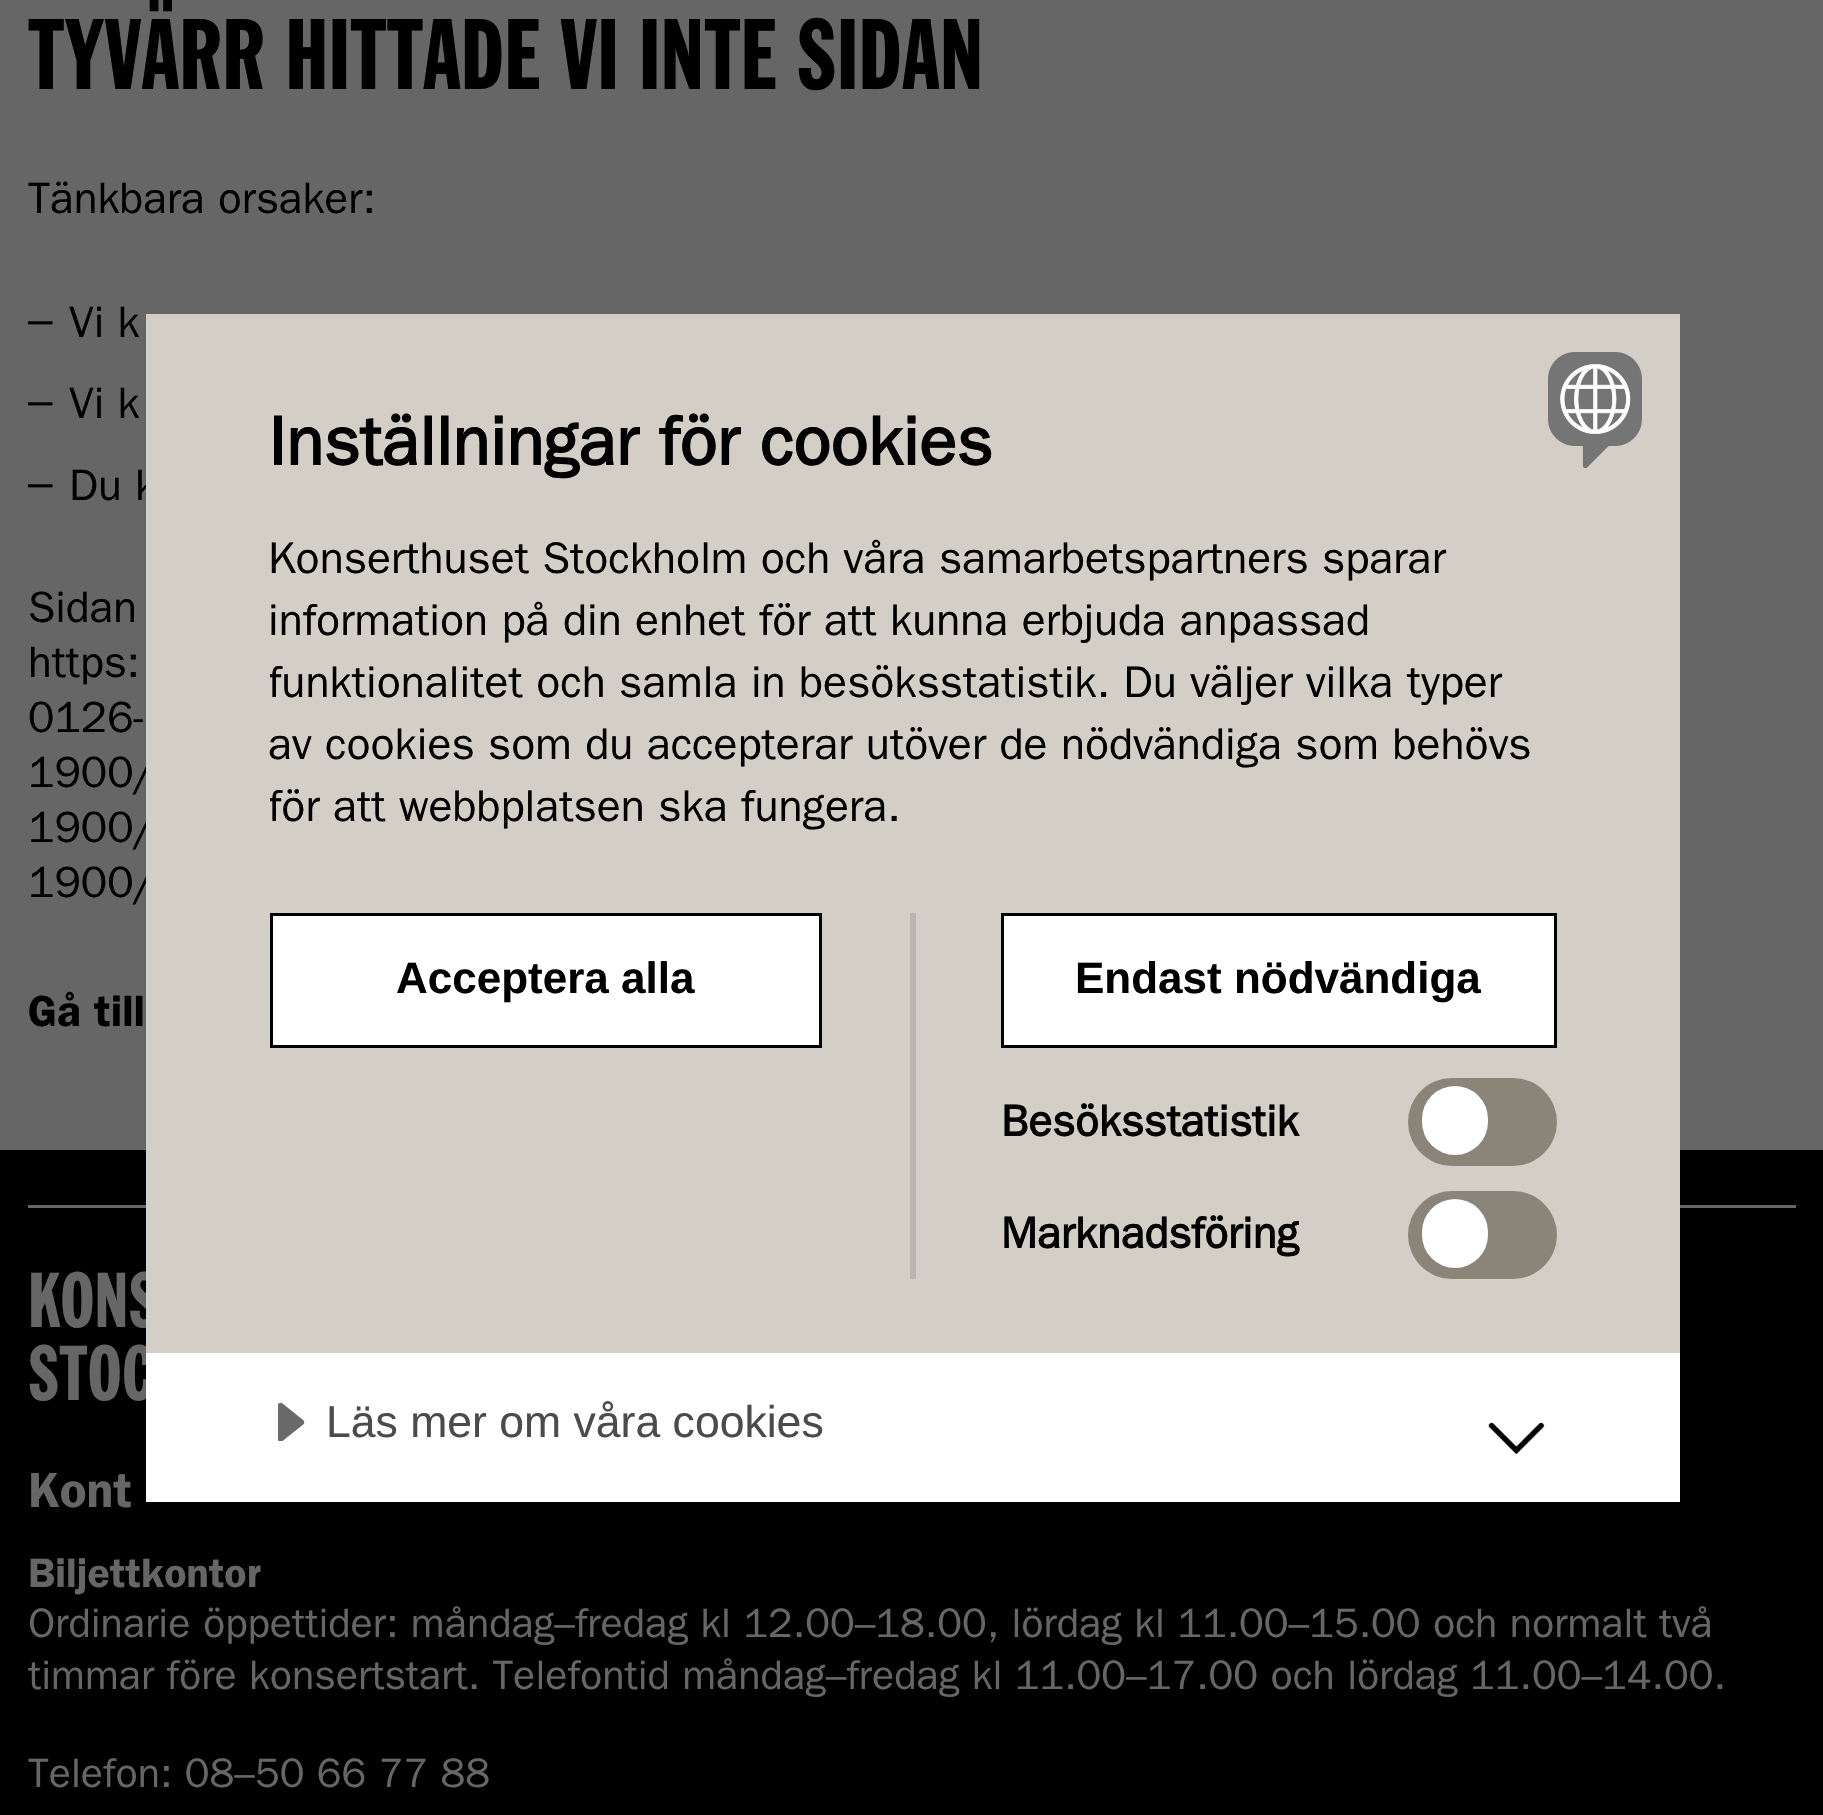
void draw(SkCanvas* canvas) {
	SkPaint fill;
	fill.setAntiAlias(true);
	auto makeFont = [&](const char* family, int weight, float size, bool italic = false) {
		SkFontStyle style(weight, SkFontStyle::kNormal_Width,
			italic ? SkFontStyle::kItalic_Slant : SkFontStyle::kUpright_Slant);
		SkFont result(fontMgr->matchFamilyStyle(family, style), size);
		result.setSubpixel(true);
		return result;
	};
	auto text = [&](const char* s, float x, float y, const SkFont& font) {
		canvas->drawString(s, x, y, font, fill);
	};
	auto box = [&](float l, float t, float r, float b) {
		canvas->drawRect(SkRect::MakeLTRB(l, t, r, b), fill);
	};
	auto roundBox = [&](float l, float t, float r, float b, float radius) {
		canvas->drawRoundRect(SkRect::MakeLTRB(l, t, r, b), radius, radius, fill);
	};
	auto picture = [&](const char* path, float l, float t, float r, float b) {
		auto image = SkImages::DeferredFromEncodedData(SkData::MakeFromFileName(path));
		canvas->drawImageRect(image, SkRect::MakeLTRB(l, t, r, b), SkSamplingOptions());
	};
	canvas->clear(0xFF666666);
	fill.setColor(0xFF000000);
	box(0, 1150, 1823, 1815);
	fill.setColor(0xFF666666);
	box(28, 1205, 1796, 1208);
	auto font1 = makeFont("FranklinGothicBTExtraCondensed", 400, 99);
	fill.setColor(0xFF000000);
	text("TYVÄRR HITTADE VI INTE SIDAN", 28, 89, font1);
	auto font2 = makeFont("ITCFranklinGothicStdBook", 400, 44);
	text("Tänkbara orsaker:", 28, 213, font2);
	auto font3 = makeFont("Liberation Sans", 400, 44);
	text("–", 28, 334, font3);
	text("Vi k", 69, 337, font2);
	text("–", 28, 415, font3);
	text("Vi k", 69, 418, font2);
	text("–", 28, 497, font3);
	text("Du k", 69, 500, font2);
	text("Sidan", 28, 622, font2);
	text("https:", 28, 677, font2);
	text("0126-", 28, 732, font2);
	text("1900/", 28, 787, font2);
	text("1900/", 28, 842, font2);
	text("1900/", 28, 897, font2);
	auto font4 = makeFont("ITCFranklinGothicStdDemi", 400, 44);
	text("Gå till", 28, 1026, font4);
	auto font5 = makeFont("FranklinGothicBTExtraCondensed", 400, 77);
	fill.setColor(0xFF666666);
	text("KONS", 28, 1327, font5);
	text("STOC", 28, 1400, font5);
	fill.setColor(0xFFD3CEC6);
	box(146, 314, 1680, 1353);
	picture("image0.png", 1548, 352, 1642, 468);
	fill.setColor(0xFFFFFFFF);
	box(146, 1353, 1680, 1502);
	picture("image2.png", 278, 1403, 305, 1441);
	auto font6 = makeFont("Liberation Sans", 400, 44.55f);
	fill.setColor(0xFF4B4B4B);
	text("Läs mer om våra cookies", 326, 1437, font6);
	fill.setColor(0xFF8B8479);
	roundBox(1408, 1191, 1557, 1279, 44);
	fill.setColor(0xFFFFFFFF);
	roundBox(1422, 1199, 1488, 1268, 33);
	auto font7 = makeFont("ITCFranklinGothicStdBook", 700, 44);
	fill.setColor(0xFF000000);
	text("Marknadsföring", 1001, 1248, font7);
	fill.setColor(0xFF8B8479);
	roundBox(1408, 1078, 1557, 1166, 44);
	fill.setColor(0xFFFFFFFF);
	roundBox(1422, 1086, 1488, 1155, 33);
	fill.setColor(0xFF000000);
	text("Besöksstatistik", 1001, 1136, font7);
	fill.setColor(0xFFFFFFFF);
	canvas->drawRect(SkRect::MakeLTRB(1002.5f, 914.5f, 1555.5f, 1046.5f), fill);
	fill.setStyle(SkPaint::kStroke_Style);
	fill.setStrokeWidth(3);
	fill.setColor(0xFF000000);
	canvas->drawRect(SkRect::MakeLTRB(1002.5f, 914.5f, 1555.5f, 1046.5f), fill);
	auto font8 = makeFont("Liberation Sans", 700, 44);
	fill.setStyle(SkPaint::kFill_Style);
	text("Endast nödvändiga", 1075, 993, font8);
	fill.setColor(0xFFFFFFFF);
	canvas->drawRect(SkRect::MakeLTRB(271.5f, 914.5f, 820.5f, 1046.5f), fill);
	fill.setStyle(SkPaint::kStroke_Style);
	fill.setColor(0xFF000000);
	canvas->drawRect(SkRect::MakeLTRB(271.5f, 914.5f, 820.5f, 1046.5f), fill);
	fill.setStyle(SkPaint::kFill_Style);
	text("Acceptera alla", 396, 993, font8);
	picture("image1.png", 1488, 1422, 1545, 1455);
	canvas->save();
	canvas->clipRect(SkRect::MakeLTRB(270, 484, 1557, 839));
	auto font9 = makeFont("ITCFranklinGothicStdBook", 400, 44.55f);
	text("för att webbplatsen ska fungera.", 268, 821, font9);
	canvas->restore();
	text("av cookies som du accepterar utöver de nödvändiga som behövs", 268, 759, font9);
	canvas->save();
	canvas->clipRect(SkRect::MakeLTRB(270, 484, 1557, 839));
	text("funktionalitet och samla in besöksstatistik. Du väljer vilka typer", 268, 697, font9);
	canvas->restore();
	text("information på din enhet för att kunna erbjuda anpassad", 268, 635, font9);
	text("Konserthuset Stockholm och våra samarbetspartners sparar", 268, 573, font9);
	fill.setColor(0xFFBAB5AE);
	box(910, 913, 916, 1279);
	auto font10 = makeFont("ITCFranklinGothicStdBook", 700, 69.25f);
	fill.setColor(0xFF000000);
	text("Inställningar för cookies", 268, 465, font10);
	auto font11 = makeFont("ITCFranklinGothicStdDemi", 400, 49.5f);
	fill.setColor(0xFF666666);
	text("Kont", 28, 1507, font11);
	auto font12 = makeFont("ITCFranklinGothicStdDemi", 400, 41.25f);
	text("Biljettkontor", 28, 1587, font12);
	auto font13 = makeFont("ITCFranklinGothicStdBook", 400, 41.25f);
	text("Ordinarie öppettider: måndag–fredag kl 12.00–18.00, lördag kl 11.00–15.00 och normalt två", 28, 1637, font13);
	text("timmar före konsertstart. Telefontid måndag–fredag kl 11.00–17.00 och lördag 11.00–14.00.", 28, 1689, font13);
	text("Telefon: 08–50 66 77 88", 28, 1787, font13);
}
